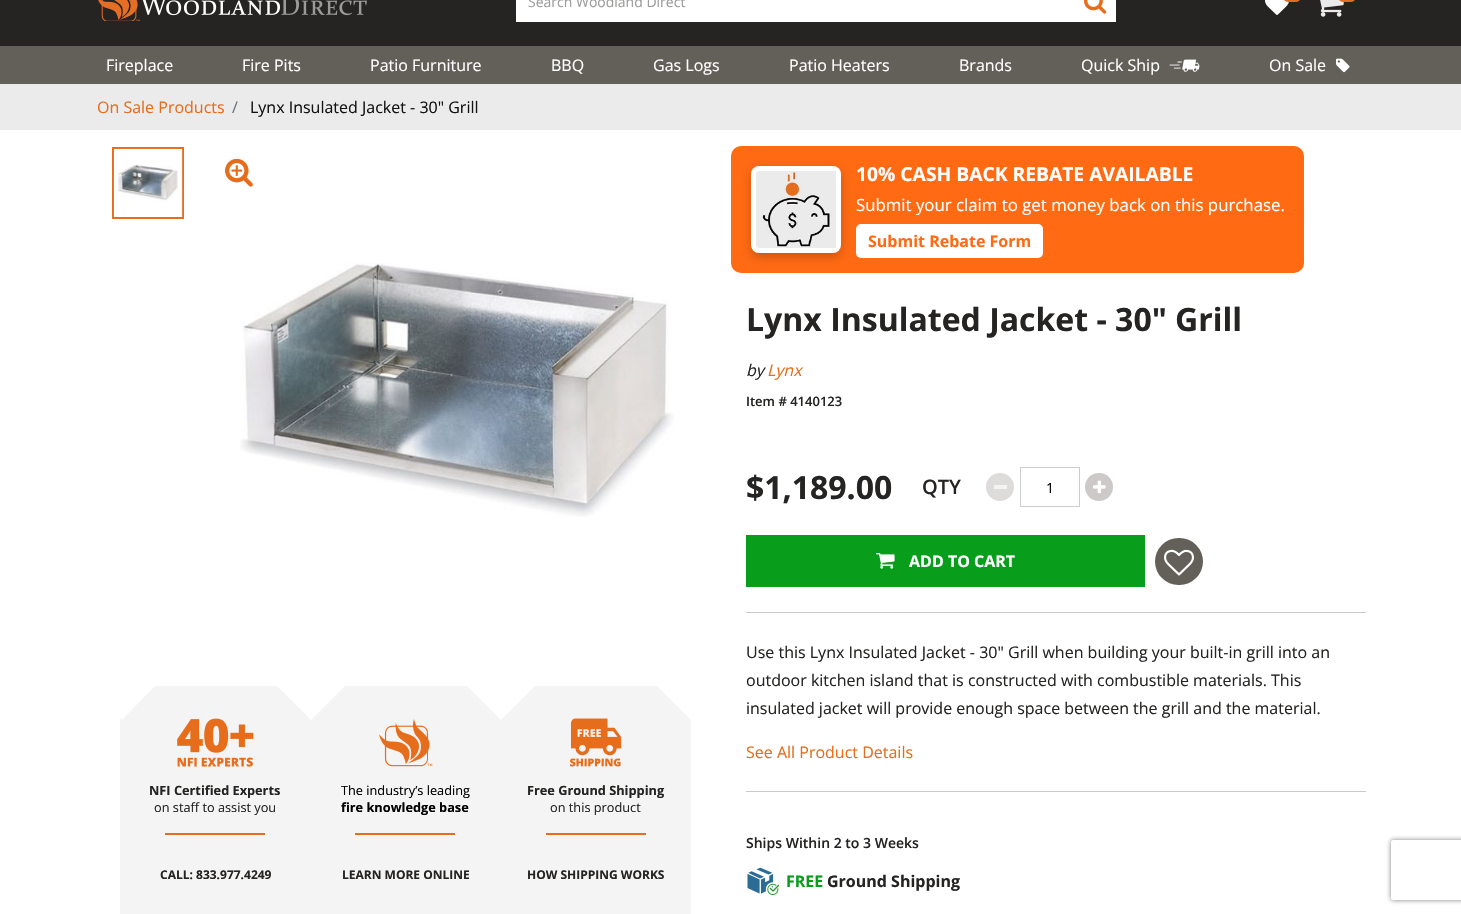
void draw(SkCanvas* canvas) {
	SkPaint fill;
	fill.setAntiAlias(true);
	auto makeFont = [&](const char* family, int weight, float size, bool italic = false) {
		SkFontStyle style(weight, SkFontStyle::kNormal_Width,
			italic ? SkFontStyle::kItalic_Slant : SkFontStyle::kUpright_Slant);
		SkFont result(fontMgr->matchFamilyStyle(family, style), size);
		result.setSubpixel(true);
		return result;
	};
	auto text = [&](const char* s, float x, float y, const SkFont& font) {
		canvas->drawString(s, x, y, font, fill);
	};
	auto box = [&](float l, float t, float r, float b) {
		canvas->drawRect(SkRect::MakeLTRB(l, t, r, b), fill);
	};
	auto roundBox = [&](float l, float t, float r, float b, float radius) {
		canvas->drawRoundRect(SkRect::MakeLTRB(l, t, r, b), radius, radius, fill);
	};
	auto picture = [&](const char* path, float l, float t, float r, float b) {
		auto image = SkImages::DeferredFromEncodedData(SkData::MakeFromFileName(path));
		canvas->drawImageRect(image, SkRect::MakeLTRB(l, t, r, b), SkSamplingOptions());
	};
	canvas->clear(0xFFFFFFFF);
	fill.setColor(0xFF252422);
	box(0, 0, 1461, 46);
	picture("image0.png", 98, 0, 367, 21);
	fill.setColor(0xFFFFFFFF);
	box(516, 0, 1116, 22);
	picture("image1.png", 1084, 0, 1107, 14);
	picture("image2.png", 1265, 0, 1289, 15);
	fill.setColor(0xFFE66D1C);
	roundBox(1283, -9, 1301, 2, 9);
	picture("image3.png", 1320, 0, 1344, 17);
	roundBox(1338, -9, 1356, 2, 9);
	fill.setColor(0xFF63605A);
	box(0, 46, 1461, 84);
	picture("image4.png", 1169, 59, 1200, 72);
	picture("image5.png", 1336, 58, 1350, 73);
	fill.setColor(0xFFEBEBEB);
	box(0, 84, 1461, 130);
	fill.setStyle(SkPaint::kStroke_Style);
	fill.setStrokeWidth(2);
	fill.setColor(0xFFE66D1C);
	canvas->drawRect(SkRect::MakeLTRB(113, 148, 183, 218), fill);
	picture("image6.png", 113, 148, 183, 217);
	picture("image7.png", 225, 158, 253, 187);
	picture("image8.png", 240, 263, 674, 517);
	fill.setStyle(SkPaint::kFill_Style);
	fill.setColor(0xFFF4F4F4);
	box(120, 686, 691, 914);
	fill.setColor(0xFFFFFFFF);
	canvas->drawPath(SkPathBuilder().moveTo(121, 652).lineTo(155, 686).lineTo(122, 720).lineTo(88, 686).close().detach(), fill);
	canvas->drawPath(SkPathBuilder().moveTo(311, 652).lineTo(345, 686).lineTo(311, 720).lineTo(277, 686).close().detach(), fill);
	canvas->drawPath(SkPathBuilder().moveTo(501, 652).lineTo(535, 686).lineTo(501, 720).lineTo(467, 686).close().detach(), fill);
	canvas->drawPath(SkPathBuilder().moveTo(691, 652).lineTo(725, 686).lineTo(691, 720).lineTo(657, 686).close().detach(), fill);
	picture("image9.png", 177, 718, 254, 767);
	fill.setColor(0xFFE66D1C);
	box(165, 833, 265, 835);
	picture("image10.png", 379, 719, 433, 767);
	box(355, 833, 455, 835);
	picture("image11.png", 570, 718, 622, 767);
	box(546, 833, 646, 835);
	fill.setColor(0xFFFF6A13);
	roundBox(731, 146, 1304, 273, 10);
	fill.setColor(0x33000000);
	fill.setMaskFilter(SkMaskFilter::MakeBlur(kNormal_SkBlurStyle, 5));
	canvas->drawRoundRect(SkRect::MakeLTRB(751, 170, 841, 257), 8, 8, fill);
	fill.setMaskFilter(nullptr);
	fill.setColor(0xFFFFFFFF);
	roundBox(751, 166, 841, 253, 8);
	picture("image12.png", 756, 171, 836, 248);
	roundBox(856, 224, 1043, 258, 5);
	fill.setColor(0xFFDEDCDB);
	canvas->drawCircle(1000, 487, 14, fill);
	fill.setColor(0xFFF3F3F2);
	box(994, 485, 1007, 489);
	fill.setStyle(SkPaint::kStroke_Style);
	fill.setStrokeWidth(1);
	fill.setColor(0xFFCDCDCD);
	canvas->drawRect(SkRect::MakeLTRB(1020.5f, 467.5f, 1079.5f, 506.5f), fill);
	fill.setStyle(SkPaint::kFill_Style);
	fill.setColor(0xFFCCC9C8);
	canvas->drawCircle(1099, 487, 14, fill);
	picture("image13.png", 1093, 480, 1106, 494);
	fill.setColor(0xFF089E1B);
	box(746, 535, 1145, 587);
	picture("image14.png", 876, 553, 895, 569);
	fill.setColor(0xFF63605A);
	roundBox(1155, 538, 1203, 585, 23.5f);
	picture("image15.png", 1164, 549, 1194, 576);
	fill.setColor(0xFFCCC9C8);
	box(746, 612, 1366, 613);
	box(746, 791, 1366, 792);
	picture("image16.png", 747, 867, 774, 894);
	picture("image17.png", 767, 883, 780, 895);
	canvas->save();
	canvas->clipPath(SkPathBuilder(SkPathFillType::kEvenOdd).moveTo(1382, 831).lineTo(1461, 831).lineTo(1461, 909).lineTo(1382, 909).close().moveTo(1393, 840).lineTo(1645, 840).cubicTo(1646, 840, 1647, 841, 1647, 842).lineTo(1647, 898).cubicTo(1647, 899, 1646, 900, 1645, 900).lineTo(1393, 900).cubicTo(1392, 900, 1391, 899, 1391, 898).lineTo(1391, 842).cubicTo(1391, 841, 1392, 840, 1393, 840).close().detach(), true);
	fill.setColor(0xFF808080);
	fill.setMaskFilter(SkMaskFilter::MakeBlur(kNormal_SkBlurStyle, 2.5f));
	canvas->drawRoundRect(SkRect::MakeLTRB(1391, 840, 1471, 900), 2, 2, fill);
	fill.setMaskFilter(nullptr);
	canvas->restore();
	auto font1 = makeFont("Open Sans", 400, 14);
	fill.setColor(0xFF9C9D9B);
	text("Search Woodland Direct", 528, 7, font1);
	auto font2 = makeFont("Open Sans", 400, 16);
	fill.setColor(0xFFFFFFFF);
	text("Fireplace", 106, 71, font2);
	text("Fire Pits", 242, 71, font2);
	text("Patio Furniture", 370, 71, font2);
	text("BBQ", 551, 71, font2);
	text("Gas Logs", 653, 71, font2);
	text("Patio Heaters", 789, 71, font2);
	text("Brands", 959, 71, font2);
	text("Quick Ship", 1081, 71, font2);
	text("On Sale", 1269, 71, font2);
	fill.setColor(0xFFE66D1C);
	text("On Sale Products", 97, 113, font2);
	fill.setColor(0xFF6C757D);
	text("/", 232, 113, font2);
	fill.setColor(0xFF121212);
	text("Lynx Insulated Jacket - 30\" Grill", 250, 113, font2);
	auto font3 = makeFont("Open Sans", 700, 12.75f);
	fill.setColor(0xFF252422);
	text("NFI Certified Experts", 149, 795, font3);
	auto font4 = makeFont("Open Sans", 400, 12.75f);
	text("on staff to assist you", 154, 812, font4);
	auto font5 = makeFont("Open Sans", 700, 12);
	text("CALL: 833.977.4249", 160, 879, font5);
	fill.setColor(0xFF000000);
	text("The industry’s leading", 341, 795, font4);
	text("fire knowledge base", 341, 812, font3);
	fill.setColor(0xFF252422);
	text("LEARN MORE ONLINE", 342, 879, font5);
	text("Free Ground Shipping", 527, 795, font3);
	text("on this product", 550, 812, font4);
	text("HOW SHIPPING WORKS", 527, 879, font5);
	auto font6 = makeFont("Open Sans", 700, 19.25f);
	fill.setColor(0xFFFFFFFF);
	text("10% CASH BACK REBATE AVAILABLE", 856, 181, font6);
	auto font7 = makeFont("Open Sans", 400, 16.8f);
	text("Submit your claim to get money back on this purchase.", 856, 211, font7);
	auto font8 = makeFont("Open Sans", 700, 16);
	fill.setColor(0xFFFF6A13);
	text("Submit Rebate Form", 868, 247, font8);
	auto font9 = makeFont("Open Sans", 700, 32);
	fill.setColor(0xFF252422);
	text("Lynx Insulated Jacket - 30\" Grill", 746, 331, font9);
	auto font10 = makeFont("Open Sans", 400, 16, true);
	text("by", 746, 376, font10);
	fill.setColor(0xFFE66D1C);
	text("Lynx", 767, 376, font10);
	auto font11 = makeFont("Open Sans", 600, 13);
	fill.setColor(0xFF252422);
	text("Item # 4140123", 746, 406, font11);
	text("$1,189.00", 746, 499, font9);
	auto font12 = makeFont("Open Sans", 600, 20);
	text("QTY", 922, 494, font12);
	fill.setColor(0xFF000000);
	text("1", 1046, 493, font1);
	fill.setColor(0xFFFFFFFF);
	text("ADD TO CART", 909, 567, font8);
	fill.setColor(0xFF252422);
	text("Use this Lynx Insulated Jacket - 30\" Grill when building your built-in grill into an", 746, 658, font2);
	text("outdoor kitchen island that is constructed with combustible materials. This", 746, 686, font2);
	text("insulated jacket will provide enough space between the grill and the material.", 746, 714, font2);
	fill.setColor(0xFFE66D1C);
	text("See All Product Details", 746, 758, font2);
	auto font13 = makeFont("Open Sans", 600, 14);
	fill.setColor(0xFF252422);
	text("Ships Within 2 to 3 Weeks", 746, 848, font13);
	fill.setColor(0xFF089E1B);
	text("FREE", 786, 887, font8);
	fill.setColor(0xFF252422);
	text("Ground Shipping", 827, 887, font8);
}
